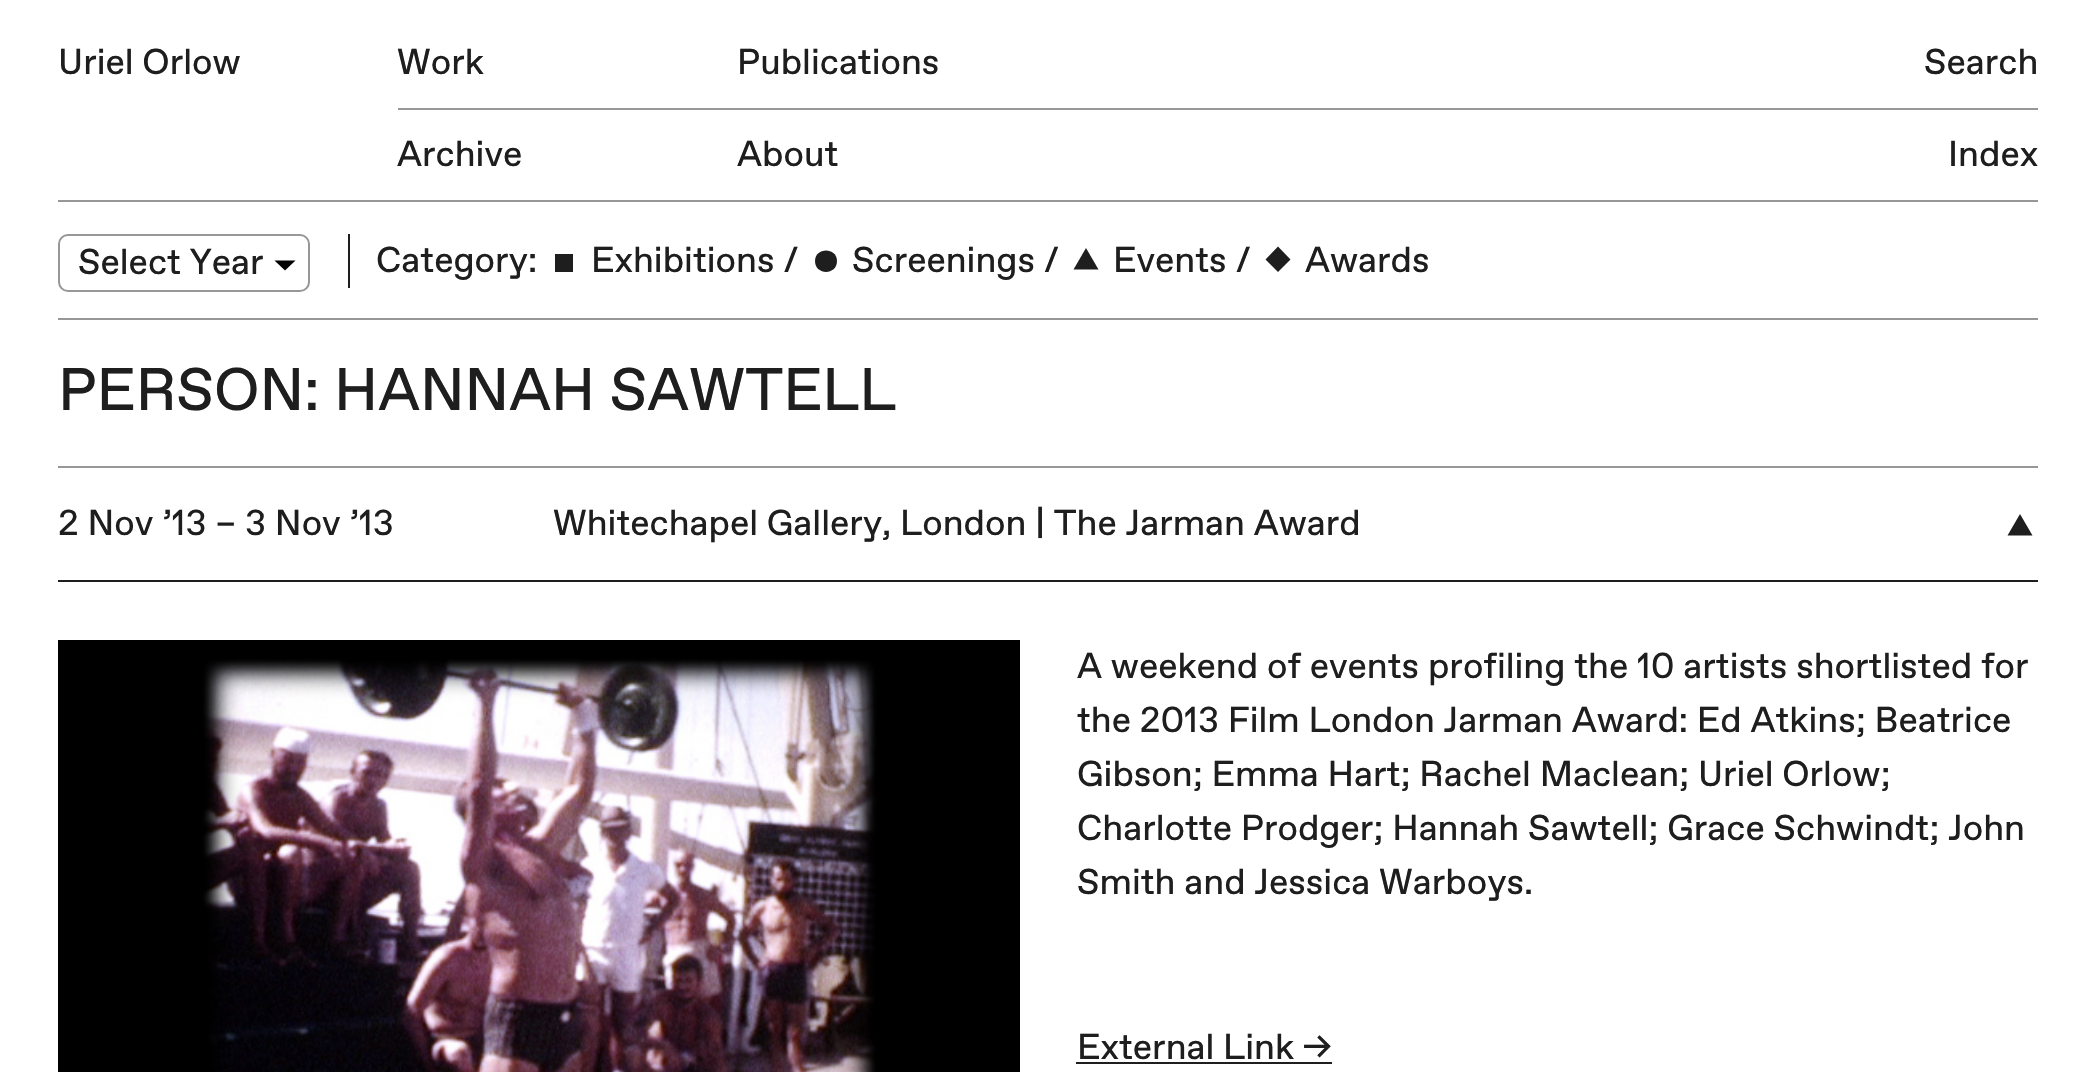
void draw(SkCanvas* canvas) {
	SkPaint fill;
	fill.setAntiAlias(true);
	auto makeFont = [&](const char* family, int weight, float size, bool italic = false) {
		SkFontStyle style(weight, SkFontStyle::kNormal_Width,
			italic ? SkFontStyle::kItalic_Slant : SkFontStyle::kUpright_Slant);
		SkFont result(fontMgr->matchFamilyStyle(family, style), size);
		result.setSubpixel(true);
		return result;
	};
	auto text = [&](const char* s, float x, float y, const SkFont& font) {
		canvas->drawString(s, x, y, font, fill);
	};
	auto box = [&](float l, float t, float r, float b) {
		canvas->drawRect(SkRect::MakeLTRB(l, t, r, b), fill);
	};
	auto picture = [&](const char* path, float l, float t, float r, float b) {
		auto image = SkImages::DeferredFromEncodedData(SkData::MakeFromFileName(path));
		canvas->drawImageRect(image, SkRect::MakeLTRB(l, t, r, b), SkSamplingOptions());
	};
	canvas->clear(0xFFFFFFFF);
	fill.setColor(0xFF979797);
	box(398, 108, 2038, 110);
	box(58, 200, 2038, 202);
	box(58, 318, 2038, 320);
	fill.setColor(0xFF000000);
	canvas->drawPath(SkPathBuilder().moveTo(285, 270.5f).lineTo(274.5f, 260.5f).lineTo(295.5f, 260.5f).close().detach(), fill);
	fill.setStyle(SkPaint::kStroke_Style);
	fill.setStrokeWidth(2);
	fill.setColor(0xFF979797);
	canvas->drawRoundRect(SkRect::MakeLTRB(59, 235, 309, 291), 9, 9, fill);
	fill.setStyle(SkPaint::kFill_Style);
	fill.setColor(0xFF1E1E1E);
	box(348, 234, 350, 288);
	box(555, 254, 573, 272);
	canvas->drawPath(SkPathBuilder().moveTo(837, 261).cubicTo(837, 275.5f, 815, 275.5f, 815, 261).cubicTo(815, 247, 837, 247, 837, 261).close().detach(), fill);
	canvas->drawPath(SkPathBuilder().moveTo(1073.5f, 269.5f).lineTo(1086, 248).lineTo(1098.5f, 269.5f).close().detach(), fill);
	canvas->drawPath(SkPathBuilder().moveTo(1278, 246.5f).lineTo(1290.5f, 259.5f).lineTo(1278, 272).lineTo(1265.5f, 259.5f).close().detach(), fill);
	fill.setColor(0xFF979797);
	box(58, 466, 2038, 468);
	fill.setColor(0xFF1E1E1E);
	box(58, 580, 2038, 582);
	canvas->drawPath(SkPathBuilder().moveTo(2007.5f, 535.5f).lineTo(2020, 514).lineTo(2032.5f, 535.5f).close().detach(), fill);
	picture("image0.png", 58, 640, 1020, 1072);
	box(1076, 1062, 1332, 1064);
	auto font1 = makeFont("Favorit", 400, 36);
	text("Uriel Orlow", 58, 74, font1);
	text("Work", 397, 74, font1);
	text("Publications", 737, 74, font1);
	text("Archive", 397, 166, font1);
	text("About", 737, 166, font1);
	text("Search", 1924, 74, font1);
	text("Index", 1948, 166, font1);
	text("Select Year", 78, 274, font1);
	text("Category:", 376, 272, font1);
	text("Exhibitions /", 591, 272, font1);
	text("Screenings /", 852, 272, font1);
	text("Events /", 1113, 272, font1);
	text("Awards", 1305, 272, font1);
	auto font2 = makeFont("Favorit", 400, 60);
	text("PERSON: HANNAH SAWTELL", 58, 410, font2);
	text("2 Nov ’13 – 3 Nov ’13", 58, 535, font1);
	text("Whitechapel Gallery, London | The Jarman Award", 553, 535, font1);
	text("A weekend of events profiling the 10 artists shortlisted for", 1077, 678, font1);
	text("the 2013 Film London Jarman Award: Ed Atkins; Beatrice", 1077, 732, font1);
	text("Gibson; Emma Hart; Rachel Maclean; Uriel Orlow;", 1077, 786, font1);
	text("Charlotte Prodger; Hannah Sawtell; Grace Schwindt; John", 1077, 840, font1);
	text("Smith and Jessica Warboys.", 1077, 894, font1);
	text("External Link →", 1077, 1059, font1);
}
